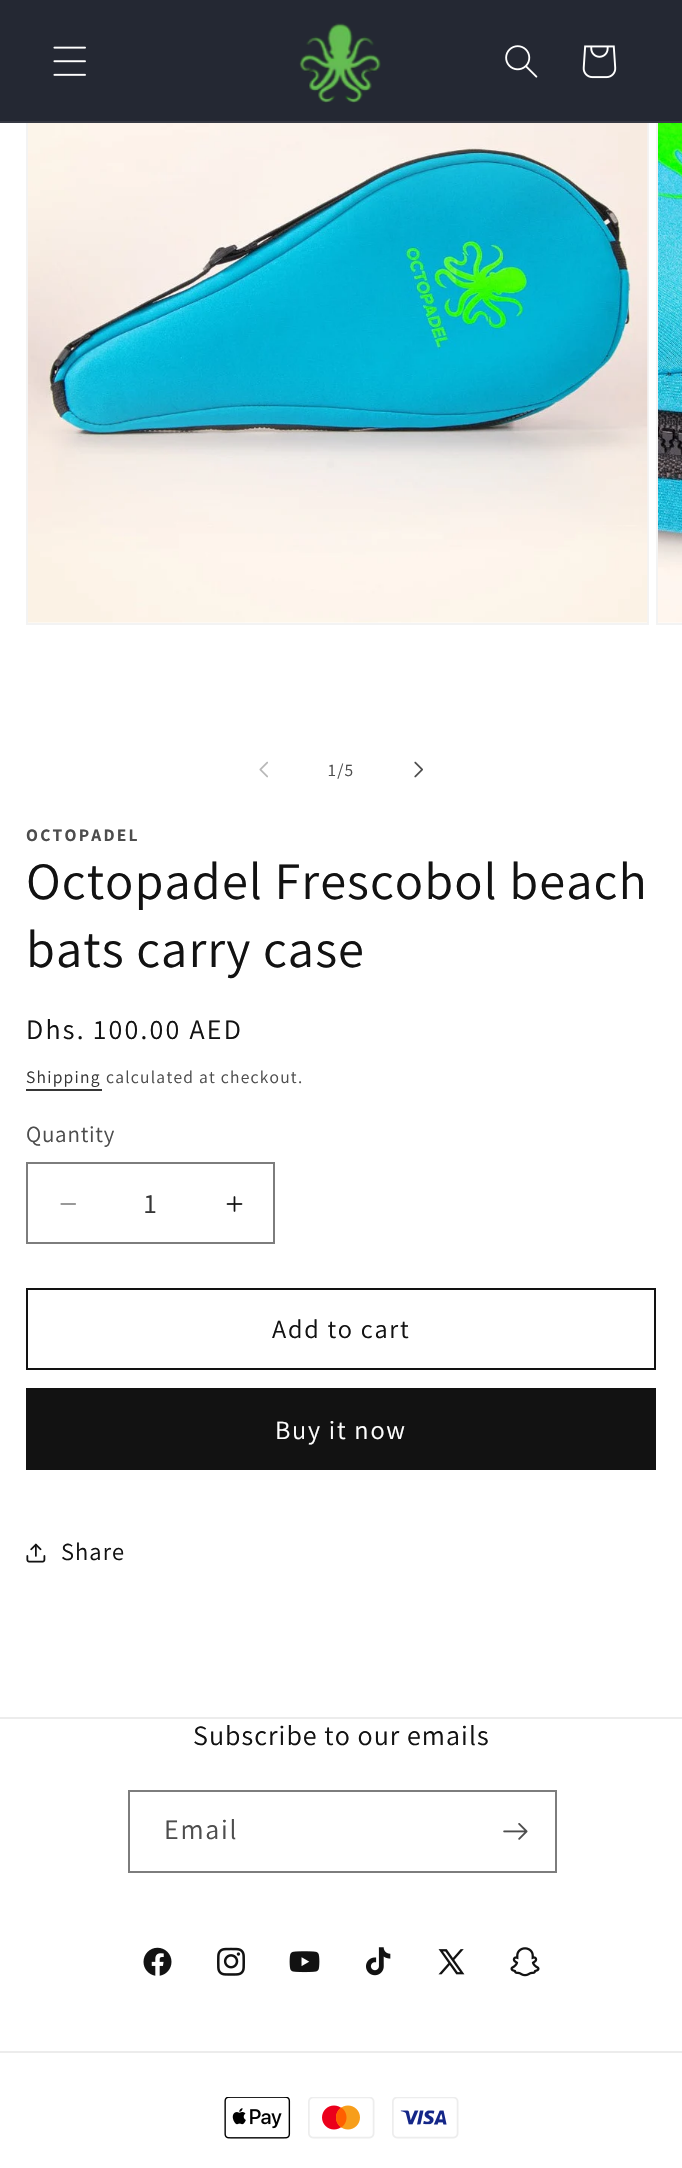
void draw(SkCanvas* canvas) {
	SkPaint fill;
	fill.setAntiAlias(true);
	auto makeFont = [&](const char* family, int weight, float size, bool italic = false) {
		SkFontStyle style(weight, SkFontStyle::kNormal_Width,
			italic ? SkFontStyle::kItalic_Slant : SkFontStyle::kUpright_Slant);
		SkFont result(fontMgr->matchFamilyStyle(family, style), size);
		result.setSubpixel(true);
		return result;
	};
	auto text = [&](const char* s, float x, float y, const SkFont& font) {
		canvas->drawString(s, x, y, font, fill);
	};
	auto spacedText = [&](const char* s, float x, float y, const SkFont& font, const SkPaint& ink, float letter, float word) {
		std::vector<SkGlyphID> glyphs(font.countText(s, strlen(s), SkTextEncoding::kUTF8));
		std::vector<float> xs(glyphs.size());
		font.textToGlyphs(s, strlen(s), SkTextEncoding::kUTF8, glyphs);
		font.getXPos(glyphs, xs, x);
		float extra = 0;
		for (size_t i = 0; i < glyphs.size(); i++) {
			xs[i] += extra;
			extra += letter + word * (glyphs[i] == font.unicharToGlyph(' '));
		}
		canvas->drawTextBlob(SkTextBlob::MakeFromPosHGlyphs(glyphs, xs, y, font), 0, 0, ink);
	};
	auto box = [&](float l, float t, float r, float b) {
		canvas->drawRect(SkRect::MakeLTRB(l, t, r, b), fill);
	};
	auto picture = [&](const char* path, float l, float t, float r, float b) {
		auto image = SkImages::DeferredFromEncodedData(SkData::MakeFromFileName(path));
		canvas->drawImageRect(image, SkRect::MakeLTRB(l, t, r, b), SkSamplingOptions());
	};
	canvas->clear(0xFFFFFFFF);
	fill.setStyle(SkPaint::kStroke_Style);
	fill.setStrokeWidth(2);
	fill.setColor(0xFFF3F3F3);
	canvas->drawRect(SkRect::MakeLTRB(27, 3, 648, 624), fill);
	canvas->drawRect(SkRect::MakeLTRB(657, 3, 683, 624), fill);
	fill.setStyle(SkPaint::kFill_Style);
	fill.setColor(0xFF242833);
	box(0, 0, 682, 121);
	fill.setColor(0xFF363943);
	box(0, 121, 682, 123);
	picture("image0.png", 53, 46, 86, 76);
	picture("image1.png", 299, 23, 381, 103);
	picture("image2.png", 505, 45, 538, 78);
	picture("image3.png", 582, 45, 617, 79);
	picture("image4.png", 28, 123, 648, 623);
	picture("image5.png", 658, 123, 682, 623);
	picture("image6.png", 259, 761, 268, 778);
	picture("image7.png", 414, 761, 423, 778);
	fill.setColor(0xFF363636);
	box(26, 1089, 102, 1091);
	picture("image8.png", 60, 1203, 76, 1205);
	picture("image9.png", 226, 1196, 243, 1212);
	fill.setStyle(SkPaint::kStroke_Style);
	fill.setColor(0xFF7D7D7D);
	canvas->drawRect(SkRect::MakeLTRB(27, 1163, 274, 1243), fill);
	fill.setColor(0xFF121212);
	canvas->drawRect(SkRect::MakeLTRB(27, 1289, 655, 1369), fill);
	fill.setStyle(SkPaint::kFill_Style);
	box(26, 1388, 656, 1470);
	picture("image10.png", 26, 1543, 46, 1563);
	fill.setColor(0xFFECECEC);
	box(0, 1717, 682, 1719);
	fill.setStyle(SkPaint::kStroke_Style);
	fill.setColor(0xFF7D7D7D);
	canvas->drawRect(SkRect::MakeLTRB(129, 1791, 556, 1872), fill);
	picture("image11.png", 503, 1823, 528, 1840);
	picture("image12.png", 143, 1947, 172, 1976);
	picture("image13.png", 217, 1947, 245, 1976);
	picture("image14.png", 289, 1951, 320, 1973);
	picture("image15.png", 366, 1947, 391, 1976);
	picture("image16.png", 438, 1949, 465, 1975);
	picture("image17.png", 510, 1947, 540, 1977);
	fill.setStyle(SkPaint::kFill_Style);
	fill.setColor(0xFFECECEC);
	box(0, 2051, 682, 2053);
	picture("image18.png", 224, 2097, 291, 2139);
	picture("image19.png", 308, 2097, 375, 2139);
	picture("image20.png", 392, 2097, 459, 2139);
	auto font1 = makeFont("Assistant", 400, 17.5f);
	fill.setColor(0xFF4D4D4D);
	spacedText("1/5", 328, 776, font1, fill, 1.25f, 0);
	auto font2 = makeFont("Assistant", 700, 17.5f);
	spacedText("OCTOPADEL", 26, 841, font2, fill, 2.25f, 0);
	auto font3 = makeFont("Assistant", 400, 52.5f);
	fill.setColor(0xFF121212);
	spacedText("Octopadel Frescobol beach", 26, 899, font3, fill, 1.05f, 0);
	spacedText("bats carry case", 26, 967, font3, fill, 1.05f, 0);
	auto font4 = makeFont("Assistant", 400, 28);
	spacedText("Dhs. 100.00 AED", 26, 1039, font4, fill, 2.25f, 0);
	fill.setColor(0xFF363636);
	spacedText("Shipping", 26, 1083, font1, fill, 1.25f, 0);
	fill.setColor(0xFF4D4D4D);
	spacedText("calculated at checkout.", 106, 1083, font1, fill, 1.25f, 0);
	auto font5 = makeFont("Assistant", 400, 23);
	spacedText("Quantity", 26, 1142, font5, fill, 0.75f, 0);
	fill.setColor(0xFF363636);
	text("1", 144, 1213, font4);
	auto font6 = makeFont("Assistant", 400, 26.25f);
	fill.setColor(0xFF121212);
	spacedText("Add to cart", 272, 1338, font6, fill, 1.75f, 0);
	fill.setColor(0xFFFFFFFF);
	spacedText("Buy it now", 275, 1439, font6, fill, 1.75f, 0);
	auto font7 = makeFont("Assistant", 400, 24.5f);
	fill.setColor(0xFF121212);
	spacedText("Share", 61, 1560, font7, fill, 1.05f, 0);
	spacedText("Subscribe to our emails", 193, 1745, font4, fill, 1.05f, 0);
	fill.setColor(0xFF4D4D4D);
	spacedText("Email", 164, 1839, font4, fill, 1.75f, 0);
}
